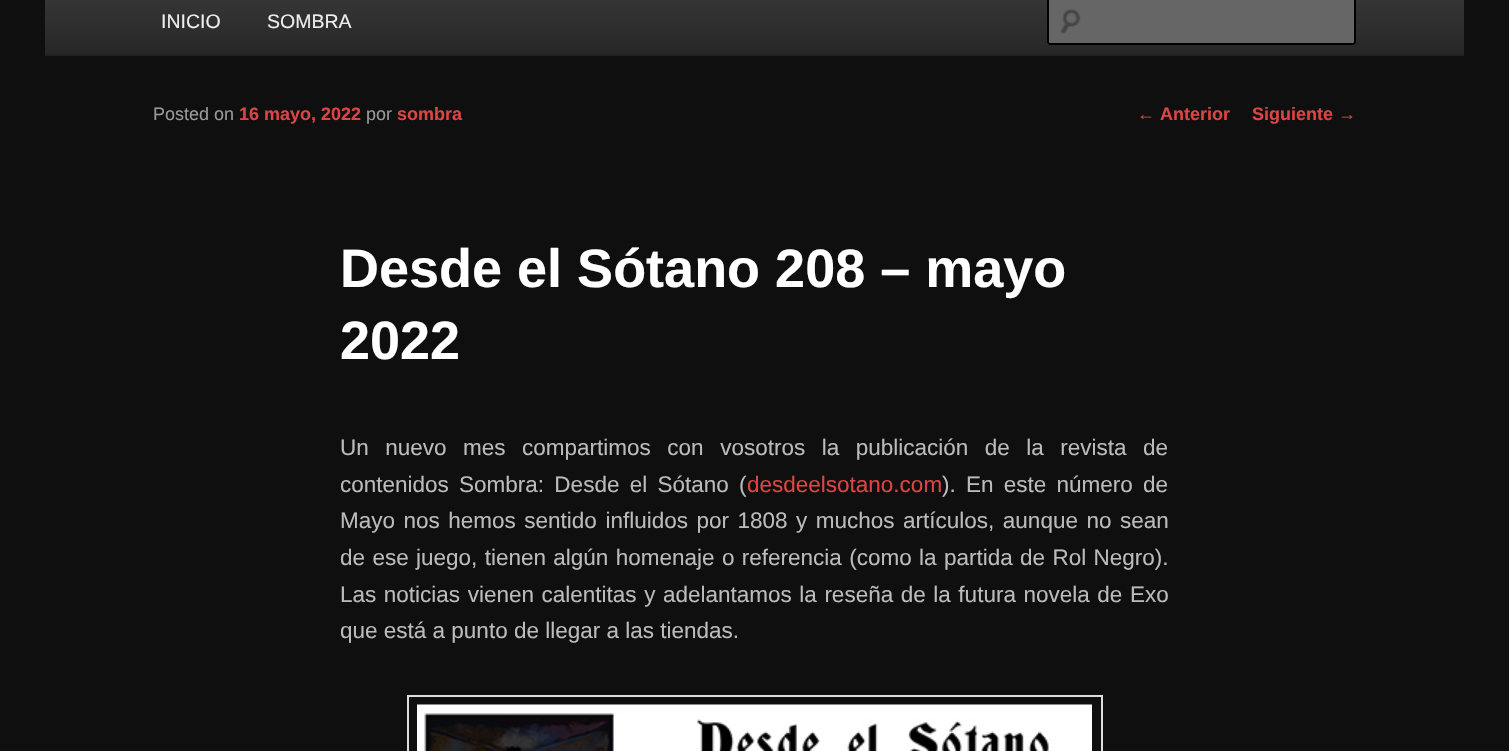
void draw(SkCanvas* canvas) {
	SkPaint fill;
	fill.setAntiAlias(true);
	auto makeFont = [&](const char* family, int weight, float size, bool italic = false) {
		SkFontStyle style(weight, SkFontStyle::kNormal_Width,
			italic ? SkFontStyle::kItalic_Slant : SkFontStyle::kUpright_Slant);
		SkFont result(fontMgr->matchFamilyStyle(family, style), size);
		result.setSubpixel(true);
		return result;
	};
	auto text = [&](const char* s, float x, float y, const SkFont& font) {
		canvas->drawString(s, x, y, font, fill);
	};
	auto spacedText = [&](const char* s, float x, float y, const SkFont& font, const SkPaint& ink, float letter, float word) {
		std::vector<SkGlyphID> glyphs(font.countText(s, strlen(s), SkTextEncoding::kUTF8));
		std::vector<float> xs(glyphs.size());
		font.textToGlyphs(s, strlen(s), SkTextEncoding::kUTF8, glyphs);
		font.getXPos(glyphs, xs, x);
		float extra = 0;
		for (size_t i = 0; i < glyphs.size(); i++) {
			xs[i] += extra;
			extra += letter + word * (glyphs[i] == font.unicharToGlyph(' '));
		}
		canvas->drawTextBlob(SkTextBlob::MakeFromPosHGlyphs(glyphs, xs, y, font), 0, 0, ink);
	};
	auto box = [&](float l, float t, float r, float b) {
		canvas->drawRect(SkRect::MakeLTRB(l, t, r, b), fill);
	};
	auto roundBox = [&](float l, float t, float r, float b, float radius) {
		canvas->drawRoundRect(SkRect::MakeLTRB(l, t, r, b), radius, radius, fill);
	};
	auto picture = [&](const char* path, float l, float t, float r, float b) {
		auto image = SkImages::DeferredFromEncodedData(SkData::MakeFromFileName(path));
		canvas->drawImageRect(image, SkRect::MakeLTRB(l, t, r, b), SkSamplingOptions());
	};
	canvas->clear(0xFF0F0F0F);
	{
		const SkColor colors[] = {0xFF383838, 0xFF272727};
		const float stops[] = {0, 1};
		const SkPoint ends[] = {{755, -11}, {755, 54}};
		fill.setShader(SkGradientShader::MakeLinear(ends, colors, stops, 2, SkTileMode::kClamp));
		fill.setAlpha(255);
	}
	box(45, 0, 1464, 54);
	fill.setShader(nullptr);
	fill.setColor(0xFF222222);
	box(45, 54, 1464, 56);
	fill.setColor(0xFF666666);
	roundBox(1047, -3, 1356, 45, 3);
	picture("image0.png", 1060, 9, 1081, 34);
	fill.setStyle(SkPaint::kStroke_Style);
	fill.setStrokeWidth(2);
	fill.setColor(0xFF000000);
	canvas->drawRoundRect(SkRect::MakeLTRB(1048, -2, 1355, 44), 2, 2, fill);
	fill.setColor(0xFFDDDDDD);
	canvas->drawRect(SkRect::MakeLTRB(408, 696, 1102, 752), fill);
	picture("image1.png", 417, 704, 1092, 751);
	auto font1 = makeFont("Liberation Sans", 400, 19.5f);
	fill.setStyle(SkPaint::kFill_Style);
	fill.setColor(0xFFEEEEEE);
	text("INICIO", 161, 28, font1);
	text("SOMBRA", 267, 28, font1);
	auto font2 = makeFont("Liberation Sans", 400, 18);
	fill.setColor(0xFF999999);
	text("Posted on", 153, 120, font2);
	auto font3 = makeFont("Liberation Sans", 700, 18);
	fill.setColor(0xFFDD4444);
	text("16 mayo, 2022", 239, 120, font3);
	fill.setColor(0xFF999999);
	text("por", 366, 120, font2);
	fill.setColor(0xFFDD4444);
	text("sombra", 397, 120, font3);
	auto font4 = makeFont("Liberation Sans", 700, 54);
	fill.setColor(0xFFFFFFFF);
	text("Desde el Sótano 208 – mayo", 340, 287, font4);
	text("2022", 340, 359, font4);
	auto font5 = makeFont("Liberation Sans", 400, 22.5f);
	fill.setColor(0xFFBBBBBB);
	spacedText("Un nuevo mes compartimos con vosotros la publicación de la revista de", 340, 455, font5, fill, 0, 10.25f);
	spacedText("contenidos Sombra: Desde el Sótano (", 340, 492, font5, fill, 0, 4);
	fill.setColor(0xFFDD4444);
	text("desdeelsotano.com", 747, 492, font5);
	fill.setColor(0xFFBBBBBB);
	spacedText("). En este número de", 942, 492, font5, fill, 0, 4);
	spacedText("Mayo nos hemos sentido influidos por 1808 y muchos artículos, aunque no sean", 340, 528, font5, fill, 0, 2.25f);
	spacedText("de ese juego, tienen algún homenaje o referencia (como la partida de Rol Negro).", 340, 565, font5, fill, 0, 1.1f);
	spacedText("Las noticias vienen calentitas y adelantamos la reseña de la futura novela de Exo", 340, 602, font5, fill, 0, 1.3f);
	text("que está a punto de llegar a las tiendas.", 340, 638, font5);
	fill.setColor(0xFFDD4444);
	text("←", 1137, 120, font2);
	text("Anterior", 1160, 120, font3);
	text("Siguiente", 1252, 120, font3);
	text("→", 1338, 120, font2);
}
